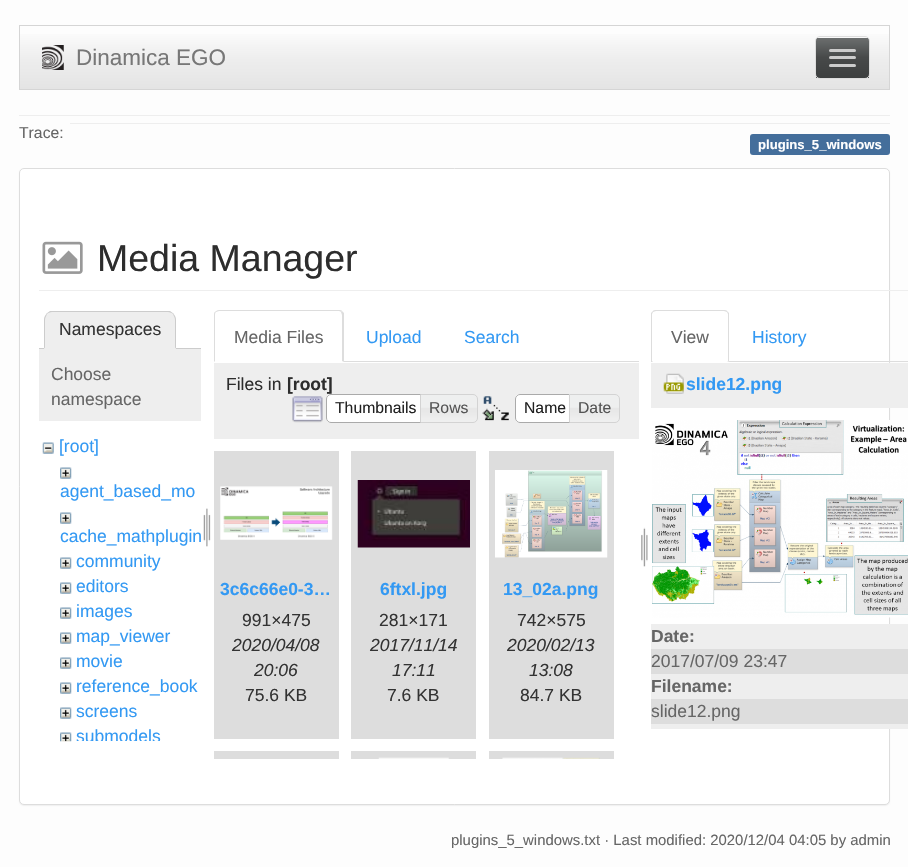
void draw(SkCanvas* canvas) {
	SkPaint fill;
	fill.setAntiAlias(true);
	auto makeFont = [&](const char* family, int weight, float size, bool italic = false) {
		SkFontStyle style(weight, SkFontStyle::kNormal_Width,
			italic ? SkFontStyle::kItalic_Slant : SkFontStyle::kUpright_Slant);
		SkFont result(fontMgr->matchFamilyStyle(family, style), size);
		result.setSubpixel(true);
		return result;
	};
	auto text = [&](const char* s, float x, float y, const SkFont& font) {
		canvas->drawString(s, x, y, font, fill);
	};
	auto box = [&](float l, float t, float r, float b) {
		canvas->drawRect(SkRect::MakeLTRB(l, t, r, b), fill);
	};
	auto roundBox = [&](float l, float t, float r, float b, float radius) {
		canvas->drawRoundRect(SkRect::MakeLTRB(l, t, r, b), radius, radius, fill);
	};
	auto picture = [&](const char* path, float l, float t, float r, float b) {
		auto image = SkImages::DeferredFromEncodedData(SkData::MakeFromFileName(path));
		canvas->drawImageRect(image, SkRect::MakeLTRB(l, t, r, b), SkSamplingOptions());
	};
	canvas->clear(0xFFFDFDFD);
	{
		const SkColor colors[] = {0xFFFFFFFF, 0xFFEEEEEE, 0xFFE4E4E4};
		const float stops[] = {0, 0.5f, 1};
		const SkPoint ends[] = {{454, 26}, {454, 89}};
		fill.setShader(SkGradientShader::MakeLinear(ends, colors, stops, 3, SkTileMode::kClamp));
		fill.setAlpha(255);
	}
	box(20, 34, 889, 89);
	fill.setStyle(SkPaint::kStroke_Style);
	fill.setStrokeWidth(1);
	fill.setShader(nullptr);
	fill.setColor(0xFFD5D5D5);
	canvas->drawRect(SkRect::MakeLTRB(19.5f, 25.5f, 889.5f, 89.5f), fill);
	picture("image0.png", 42, 45, 64, 70);
	fill.setStyle(SkPaint::kFill_Style);
	{
		const SkColor colors[] = {0xFF6D7070, 0xFF474949, 0xFF3D3F3F};
		const float stops[] = {0, 0.5f, 1};
		const SkPoint ends[] = {{843, 37}, {843, 78}};
		fill.setShader(SkGradientShader::MakeLinear(ends, colors, stops, 3, SkTileMode::kClamp));
		fill.setAlpha(255);
	}
	box(816, 38, 869, 78);
	fill.setStyle(SkPaint::kStroke_Style);
	fill.setShader(nullptr);
	fill.setColor(0xFFDDDDDD);
	canvas->drawRoundRect(SkRect::MakeLTRB(815.5f, 36.5f, 869.5f, 78.5f), 4.5f, 4.5f, fill);
	fill.setStyle(SkPaint::kFill_Style);
	fill.setColor(0xFFCCCCCC);
	roundBox(829, 49, 856, 52, 1.5f);
	roundBox(829, 56, 856, 59, 1.5f);
	roundBox(829, 64, 856, 67, 1.5f);
	fill.setColor(0xFFEEEEEE);
	box(19, 115, 890, 116);
	box(70, 123, 890, 124);
	fill.setColor(0xFF446E9B);
	roundBox(750, 134, 890, 155, 3);
	fill.setColor(0x0D000000);
	fill.setMaskFilter(SkMaskFilter::MakeBlur(kNormal_SkBlurStyle, 0.5f));
	canvas->drawRoundRect(SkRect::MakeLTRB(19, 169, 890, 806), 5, 5, fill);
	fill.setMaskFilter(nullptr);
	fill.setColor(0xFFFFFFFF);
	canvas->drawRoundRect(SkRect::MakeLTRB(19.5f, 168.5f, 889.5f, 804.5f), 4.5f, 4.5f, fill);
	fill.setStyle(SkPaint::kStroke_Style);
	fill.setColor(0xFFDDDDDD);
	canvas->drawRoundRect(SkRect::MakeLTRB(19.5f, 168.5f, 889.5f, 804.5f), 4.5f, 4.5f, fill);
	fill.setStyle(SkPaint::kFill_Style);
	fill.setColor(0xFFEEEEEE);
	box(39, 290, 908, 291);
	picture("image1.png", 42, 241, 83, 274);
	fill.setColor(0xFFCCCCCC);
	box(39, 348, 201, 349);
	fill.setColor(0xFFEEEEEE);
	canvas->drawPath(SkPathBuilder().moveTo(53, 311).lineTo(167, 311).cubicTo(172, 311, 176, 315, 176, 320).lineTo(176, 349).lineTo(44, 349).lineTo(44, 320).cubicTo(44, 315, 48, 311, 53, 311).close().detach(), fill);
	fill.setColor(0xFFCCCCCC);
	canvas->drawPath(SkPathBuilder().moveTo(52, 312).cubicTo(50, 312, 48, 313, 47, 314).lineTo(46, 314).lineTo(50, 311).lineTo(170, 311).lineTo(174, 314).lineTo(173, 314).cubicTo(172, 313, 170, 312, 168, 312).close().detach(), fill);
	canvas->drawPath(SkPathBuilder().moveTo(173.5f, 314).cubicTo(175, 315.5f, 176, 317.5f, 176, 320).lineTo(176, 348.5f).lineTo(175, 347.5f).lineTo(175, 320).cubicTo(175, 318, 174, 316, 173, 314.5f).close().detach(), fill);
	canvas->drawPath(SkPathBuilder().moveTo(44, 348.5f).lineTo(44, 320).cubicTo(44, 317.5f, 45, 315.5f, 46.5f, 314).lineTo(47, 314.5f).cubicTo(46, 316, 45, 318, 45, 320).lineTo(45, 347.5f).close().detach(), fill);
	fill.setColor(0xFFEEEEEE);
	box(39, 349, 201, 421);
	picture("image2.png", 42, 442, 54, 454);
	picture("image3.png", 60, 467, 72, 479);
	picture("image4.png", 60, 512, 72, 524);
	picture("image3.png", 60, 557, 72, 569);
	picture("image5.png", 60, 582, 72, 594);
	picture("image3.png", 60, 607, 72, 619);
	picture("image3.png", 60, 632, 72, 644);
	picture("image3.png", 60, 657, 72, 669);
	picture("image3.png", 60, 682, 72, 694);
	picture("image3.png", 60, 707, 72, 719);
	picture("image6.png", 60, 732, 72, 742);
	picture("image7.png", 203, 508, 211, 547);
	fill.setColor(0xFFDDDDDD);
	box(344, 361, 639, 362);
	canvas->drawPath(SkPathBuilder().moveTo(219, 310).cubicTo(217, 310, 216, 311, 215, 312).lineTo(216, 312).lineTo(219, 311).lineTo(339, 311).cubicTo(340, 311, 341, 312, 341, 312).lineTo(342, 311).cubicTo(342, 310, 340, 310, 339, 310).close().detach(), fill);
	canvas->drawPath(SkPathBuilder().moveTo(344, 362).lineTo(342, 361).lineTo(342, 315).lineTo(341, 312).lineTo(342, 311).lineTo(344, 313).close().detach(), fill);
	canvas->drawPath(SkPathBuilder().moveTo(215, 312).cubicTo(214, 312, 214, 314, 214, 315).lineTo(214, 362).lineTo(215, 361).lineTo(215, 315).cubicTo(215, 314, 215, 313, 216, 312).close().detach(), fill);
	fill.setColor(0xFFEEEEEE);
	box(214, 363, 639, 439);
	picture("image8.png", 292, 396, 323, 423);
	fill.setColor(0xFFFFFFFF);
	canvas->drawPath(SkPathBuilder().moveTo(331, 394).lineTo(426, 394).lineTo(426, 423).lineTo(331, 423).cubicTo(328, 423, 326, 421, 326, 418).lineTo(326, 399).cubicTo(326, 396, 328, 394, 331, 394).close().detach(), fill);
	picture("image11.png", 482, 396, 509, 421);
	canvas->drawPath(SkPathBuilder().moveTo(520, 394).lineTo(575, 394).lineTo(575, 423).lineTo(520, 423).cubicTo(517, 423, 515, 421, 515, 418).lineTo(515, 399).cubicTo(515, 396, 517, 394, 520, 394).close().detach(), fill);
	picture("image12.png", 515, 394, 519, 397);
	fill.setStyle(SkPaint::kStroke_Style);
	fill.setColor(0xFFAAAAAA);
	canvas->drawPath(SkPathBuilder().moveTo(520, 394.5f).lineTo(574.5f, 394.5f).lineTo(574.5f, 422.5f).lineTo(520, 422.5f).cubicTo(517.5f, 422.5f, 515.5f, 420.5f, 515.5f, 418).lineTo(515.5f, 399).cubicTo(515.5f, 396.5f, 517.5f, 394.5f, 520, 394.5f).close().detach(), fill);
	picture("image13.png", 568, 394, 620, 422);
	fill.setColor(0xFFD3D3D3);
	canvas->drawPath(SkPathBuilder().moveTo(569.5f, 394.5f).lineTo(615, 394.5f).cubicTo(617.5f, 394.5f, 619.5f, 396.5f, 619.5f, 399).lineTo(619.5f, 418).cubicTo(619.5f, 420.5f, 617.5f, 422.5f, 615, 422.5f).lineTo(569.5f, 422.5f).close().detach(), fill);
	picture("image14.png", 641, 527, 648, 567);
	fill.setStyle(SkPaint::kFill_Style);
	fill.setColor(0xFFDDDDDD);
	box(214, 451, 339, 739);
	picture("image15.png", 220, 486, 333, 540);
	box(351, 451, 476, 739);
	picture("image16.png", 357, 480, 470, 548);
	box(489, 451, 614, 739);
	picture("image17.png", 495, 470, 608, 558);
	box(214, 751, 339, 759);
	box(351, 751, 476, 759);
	picture("image18.png", 378, 757, 449, 759);
	box(489, 751, 614, 759);
	picture("image19.png", 502, 757, 600, 759);
	box(729, 361, 908, 362);
	canvas->drawPath(SkPathBuilder().moveTo(656, 310).cubicTo(655, 310, 653, 310, 653, 311).lineTo(653, 312).lineTo(656, 311).lineTo(724, 311).lineTo(727, 312).lineTo(727, 311).cubicTo(727, 310, 725, 310, 724, 310).close().detach(), fill);
	canvas->drawPath(SkPathBuilder().moveTo(729, 362).lineTo(727, 361).lineTo(728, 361).lineTo(728, 314).lineTo(727, 312).lineTo(727, 311).lineTo(729, 313).close().detach(), fill);
	canvas->drawPath(SkPathBuilder().moveTo(651, 313).lineTo(653, 311).lineTo(653, 312).lineTo(652, 314).lineTo(652, 361).lineTo(653, 361).lineTo(652, 362).lineTo(651, 362).close().detach(), fill);
	fill.setColor(0xFFEEEEEE);
	box(651, 363, 908, 408);
	picture("image20.png", 663, 373, 684, 394);
	picture("image21.png", 652, 420, 908, 618);
	box(651, 624, 908, 649);
	fill.setColor(0xFFDDDDDD);
	box(651, 649, 908, 674);
	fill.setColor(0xFFEEEEEE);
	box(651, 674, 908, 699);
	fill.setColor(0xFFDDDDDD);
	box(651, 699, 908, 724);
	fill.setColor(0xFFEEEEEE);
	box(651, 724, 908, 729);
	auto font1 = makeFont("Liberation Sans", 400, 22.5f);
	fill.setColor(0xFF777777);
	text("Dinamica EGO", 76, 65, font1);
	auto font2 = makeFont("Liberation Sans", 400, 15.75f);
	fill.setColor(0xFF666666);
	text("Trace:", 19, 138, font2);
	auto font3 = makeFont("Liberation Sans", 700, 13.1f);
	fill.setColor(0xFFFFFFFF);
	text("plugins_5_windows", 758, 149, font3);
	auto font4 = makeFont("Liberation Sans", 400, 37.5f);
	fill.setColor(0xFF2D2D2D);
	text("Media Manager", 97, 271, font4);
	auto font5 = makeFont("Liberation Sans", 400, 17.5f);
	fill.setColor(0xFF333333);
	text("Namespaces", 59, 335, font5);
	fill.setColor(0xFF666666);
	text("Choose", 51, 380, font5);
	text("namespace", 51, 405, font5);
	fill.setColor(0xFF3399F3);
	text("[root]", 59, 452, font5);
	text("agent_based_mo", 60, 497, font5);
	text("cache_mathplugin", 60, 542, font5);
	text("community", 76, 567, font5);
	text("editors", 76, 592, font5);
	text("images", 76, 617, font5);
	text("map_viewer", 76, 642, font5);
	text("movie", 76, 667, font5);
	text("reference_book", 76, 692, font5);
	text("screens", 76, 717, font5);
	canvas->save();
	canvas->clipRect(SkRect::MakeLTRB(60, 724, 201, 741));
	text("submodels", 76, 742, font5);
	canvas->restore();
	fill.setColor(0xFF666666);
	text("Media Files", 234, 343, font5);
	fill.setColor(0xFF3399F3);
	text("Upload", 366, 343, font5);
	text("Search", 464, 343, font5);
	fill.setColor(0xFF2D2D2D);
	text("Files in", 226, 390, font5);
	auto font6 = makeFont("Liberation Sans", 700, 17.5f);
	text("[root]", 287, 390, font6);
	picture("image9.png", 327, 393, 331, 396);
	fill.setStyle(SkPaint::kStroke_Style);
	fill.setColor(0xFFAAAAAA);
	canvas->drawPath(SkPathBuilder().moveTo(331, 394.5f).lineTo(425.5f, 394.5f).lineTo(425.5f, 422.5f).lineTo(331, 422.5f).cubicTo(328.5f, 422.5f, 326.5f, 420.5f, 326.5f, 418).lineTo(326.5f, 399).cubicTo(326.5f, 396.5f, 328.5f, 394.5f, 331, 394.5f).close().detach(), fill);
	fill.setStyle(SkPaint::kFill_Style);
	fill.setColor(0xFF212121);
	text("Thumbnails", 335, 413, font2);
	picture("image10.png", 421, 394, 477, 422);
	fill.setStyle(SkPaint::kStroke_Style);
	fill.setColor(0xFFD3D3D3);
	canvas->drawPath(SkPathBuilder().moveTo(420.5f, 394.5f).lineTo(473, 394.5f).cubicTo(475.5f, 394.5f, 477.5f, 396.5f, 477.5f, 399).lineTo(477.5f, 418).cubicTo(477.5f, 420.5f, 475.5f, 422.5f, 473, 422.5f).lineTo(420.5f, 422.5f).close().detach(), fill);
	fill.setStyle(SkPaint::kFill_Style);
	fill.setColor(0xFF555555);
	text("Rows", 429, 413, font2);
	fill.setColor(0xFF212121);
	text("Name", 524, 413, font2);
	fill.setColor(0xFF555555);
	text("Date", 578, 413, font2);
	fill.setColor(0xFF3399F3);
	text("3c6c66e0-3…", 220, 595, font6);
	fill.setColor(0xFF333333);
	text("991×475", 242, 626, font5);
	auto font7 = makeFont("Liberation Sans", 400, 17.5f, true);
	text("2020/04/08", 232, 651, font7);
	text("20:06", 254, 676, font7);
	text("75.6 KB", 245, 701, font5);
	fill.setColor(0xFF3399F3);
	text("6ftxl.jpg", 380, 595, font6);
	fill.setColor(0xFF333333);
	text("281×171", 379, 626, font5);
	text("2017/11/14", 370, 651, font7);
	text("17:11", 392, 676, font7);
	text("7.6 KB", 387, 701, font5);
	fill.setColor(0xFF3399F3);
	text("13_02a.png", 503, 595, font6);
	fill.setColor(0xFF333333);
	text("742×575", 517, 626, font5);
	text("2020/02/13", 507, 651, font7);
	text("13:08", 529, 676, font7);
	text("84.7 KB", 520, 701, font5);
	fill.setColor(0xFF666666);
	text("View", 671, 343, font5);
	fill.setColor(0xFF3399F3);
	text("History", 752, 343, font5);
	text("slide12.png", 686, 390, font6);
	fill.setColor(0xFF666666);
	text("Date:", 651, 642, font6);
	text("2017/07/09 23:47", 651, 667, font5);
	text("Filename:", 651, 692, font6);
	text("slide12.png", 651, 717, font5);
	auto font8 = makeFont("Liberation Sans", 400, 14.9f);
	text("plugins_5_windows.txt · Last modified: 2020/12/04 04:05 by admin", 451, 845, font8);
}
